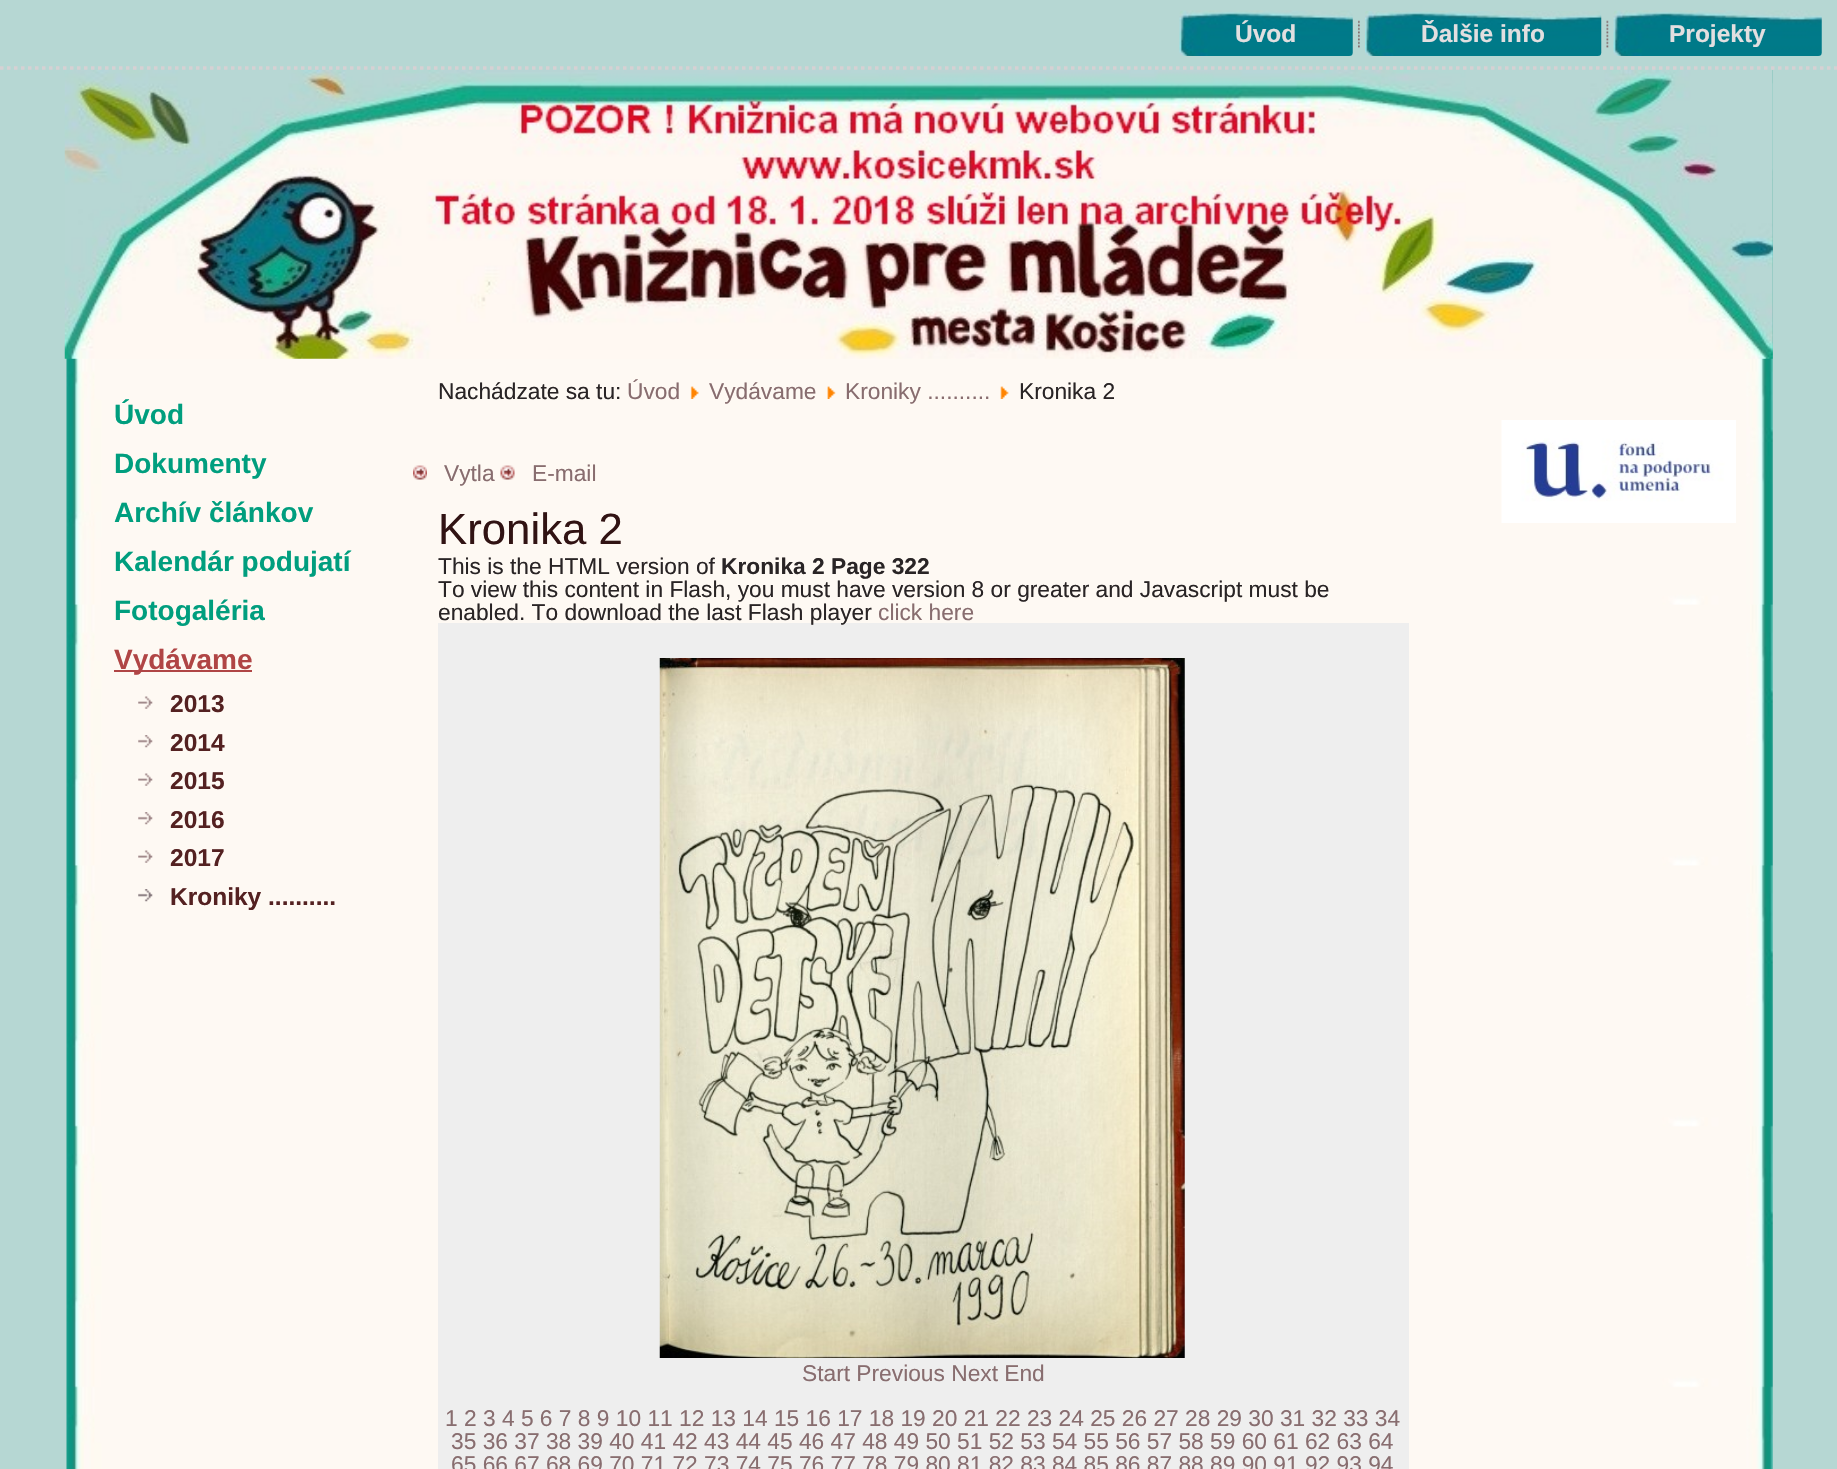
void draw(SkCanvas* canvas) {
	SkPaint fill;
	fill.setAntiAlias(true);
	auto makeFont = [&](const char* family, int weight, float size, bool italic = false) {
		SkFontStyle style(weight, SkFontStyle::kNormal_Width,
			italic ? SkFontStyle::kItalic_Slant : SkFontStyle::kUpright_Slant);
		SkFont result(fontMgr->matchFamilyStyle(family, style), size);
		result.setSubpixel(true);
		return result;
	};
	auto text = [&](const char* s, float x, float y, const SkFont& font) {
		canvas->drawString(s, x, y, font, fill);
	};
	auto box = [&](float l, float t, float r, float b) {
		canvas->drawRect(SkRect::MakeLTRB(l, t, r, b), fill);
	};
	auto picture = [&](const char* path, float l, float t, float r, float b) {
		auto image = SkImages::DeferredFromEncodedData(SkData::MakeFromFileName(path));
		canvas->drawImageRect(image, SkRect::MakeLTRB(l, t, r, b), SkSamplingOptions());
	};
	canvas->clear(0xFFB6D7D3);
	picture("image0.png", 66, 70, 1773, 1469);
	fill.setStyle(SkPaint::kStroke_Style);
	fill.setStrokeWidth(3.5f);
	fill.setColor(0xFFD6D1D3);
	fill.setPathEffect(SkDashPathEffect::Make({{3.5f, 3.5f}}, 0));
	canvas->drawPath(SkPathBuilder().moveTo(0, 68).lineTo(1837.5f, 68).detach(), fill);
	fill.setPathEffect(nullptr);
	picture("image1.png", 1179, 10, 1353, 56);
	picture("image2.png", 1358, 20, 1360, 48);
	picture("image3.png", 1365, 11, 1602, 56);
	picture("image4.png", 1606, 20, 1609, 48);
	picture("image5.png", 1613, 10, 1822, 56);
	picture("image6.png", 64, 70, 1773, 359);
	fill.setStyle(SkPaint::kFill_Style);
	fill.setColor(0xFFB04545);
	box(114, 670, 252, 672);
	picture("image7.png", 138, 696, 153, 709);
	picture("image8.png", 138, 735, 153, 748);
	picture("image7.png", 138, 773, 153, 786);
	picture("image8.png", 138, 812, 153, 825);
	picture("image7.png", 138, 850, 153, 863);
	picture("image9.png", 138, 889, 153, 902);
	picture("image10.png", 690, 386, 699, 399);
	picture("image11.png", 827, 386, 836, 399);
	picture("image12.png", 1000, 386, 1009, 399);
	picture("image13.png", 413, 465, 427, 480);
	picture("image14.png", 500, 465, 515, 480);
	fill.setColor(0xFFEEEEEE);
	box(438, 623, 1409, 1469);
	picture("image15.png", 659, 658, 1185, 1358);
	picture("image16.png", 1501, 420, 1736, 523);
	auto font1 = makeFont("Liberation Sans", 700, 24.5f);
	fill.setColor(0xFFE2DFE0);
	text("Úvod", 1235, 42, font1);
	text("Ďalšie info", 1421, 42, font1);
	text("Projekty", 1669, 42, font1);
	auto font2 = makeFont("Liberation Sans", 700, 28);
	fill.setColor(0xFF009E7E);
	text("Úvod", 114, 424, font2);
	text("Dokumenty", 114, 473, font2);
	text("Archív článkov", 114, 522, font2);
	text("Kalendár podujatí", 114, 571, font2);
	text("Fotogaléria", 114, 620, font2);
	fill.setColor(0xFFB04545);
	text("Vydávame", 114, 669, font2);
	fill.setColor(0xFF542121);
	text("2013", 170, 712, font1);
	text("2014", 170, 751, font1);
	text("2015", 170, 789, font1);
	text("2016", 170, 828, font1);
	text("2017", 170, 866, font1);
	text("Kroniky ..........", 170, 905, font1);
	auto font3 = makeFont("Liberation Sans", 400, 22.75f);
	fill.setColor(0xFF292425);
	text("Nachádzate sa tu:", 438, 399, font3);
	fill.setColor(0xFF886D6F);
	text("Úvod", 627, 399, font3);
	text("Vydávame", 709, 399, font3);
	text("Kroniky ..........", 845, 399, font3);
	fill.setColor(0xFF292425);
	text("Kronika 2", 1019, 399, font3);
	fill.setColor(0xFF886D6F);
	text("Vytla", 444, 481, font3);
	text("E-mail", 532, 481, font3);
	auto font4 = makeFont("Liberation Sans", 400, 43.75f);
	fill.setColor(0xFF311313);
	text("Kronika 2", 438, 544, font4);
	fill.setColor(0xFF292425);
	text("This is the HTML version of", 438, 574, font3);
	auto font5 = makeFont("Liberation Sans", 700, 22.75f);
	text("Kronika 2 Page 322", 721, 574, font5);
	text("To view this content in Flash, you must have version 8 or greater and Javascript must be", 438, 597, font3);
	text("enabled. To download the last Flash player", 438, 620, font3);
	fill.setColor(0xFF886D6F);
	text("click here", 878, 620, font3);
	text("Start Previous Next End", 802, 1381, font3);
	text("1 2 3 4 5 6 7 8 9 10 11 12 13 14 15 16 17 18 19 20 21 22 23 24 25 26 27 28 29 30 31 32 33 34", 445, 1426, font3);
	text("35 36 37 38 39 40 41 42 43 44 45 46 47 48 49 50 51 52 53 54 55 56 57 58 59 60 61 62 63 64", 451, 1449, font3);
	text("65 66 67 68 69 70 71 72 73 74 75 76 77 78 79 80 81 82 83 84 85 86 87 88 89 90 91 92 93 94", 451, 1472, font3);
}
